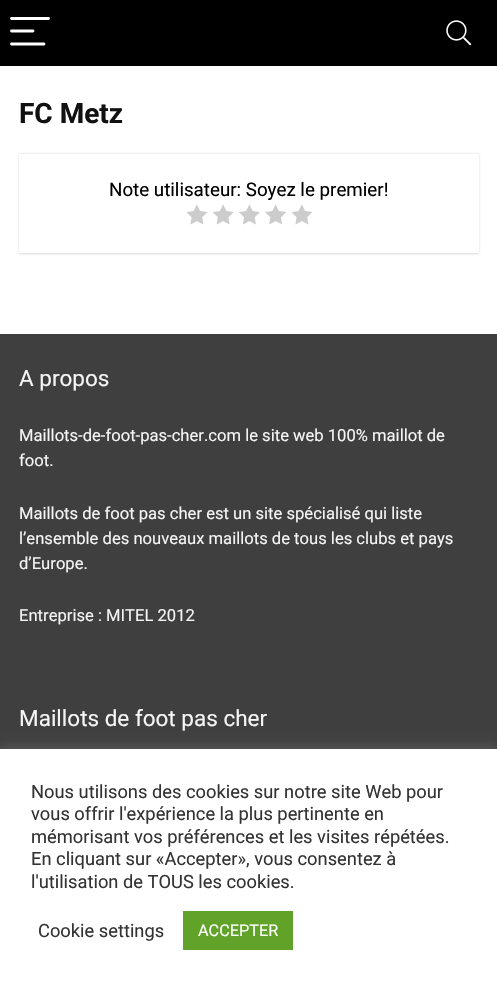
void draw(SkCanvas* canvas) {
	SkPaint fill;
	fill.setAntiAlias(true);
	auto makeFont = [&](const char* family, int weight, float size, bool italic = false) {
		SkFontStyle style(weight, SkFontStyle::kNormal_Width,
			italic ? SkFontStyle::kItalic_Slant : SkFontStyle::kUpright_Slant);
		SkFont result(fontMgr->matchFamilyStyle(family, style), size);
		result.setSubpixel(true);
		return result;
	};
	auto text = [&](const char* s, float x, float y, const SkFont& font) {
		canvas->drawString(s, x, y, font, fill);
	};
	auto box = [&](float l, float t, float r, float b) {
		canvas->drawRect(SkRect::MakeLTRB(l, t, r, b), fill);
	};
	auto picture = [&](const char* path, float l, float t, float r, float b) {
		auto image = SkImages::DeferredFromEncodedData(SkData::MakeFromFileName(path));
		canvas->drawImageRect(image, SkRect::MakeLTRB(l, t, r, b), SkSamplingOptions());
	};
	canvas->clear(0xFFFFFFFF);
	fill.setColor(0xFF000000);
	box(0, 0, 497, 66);
	fill.setStyle(SkPaint::kStroke_Style);
	fill.setStrokeWidth(2.8f);
	fill.setStrokeCap(SkPaint::kRound_Cap);
	fill.setColor(0xFFFFFFFF);
	canvas->drawPath(SkPathBuilder().moveTo(11.5f, 18.5f).lineTo(48.5f, 18.5f).moveTo(11.5f, 31).lineTo(33, 31).moveTo(11.5f, 44).lineTo(44, 44).detach(), fill);
	picture("image0.png", 446, 20, 472, 46);
	fill.setStyle(SkPaint::kFill_Style);
	fill.setColor(0x26000000);
	fill.setMaskFilter(SkMaskFilter::MakeBlur(kNormal_SkBlurStyle, 1));
	canvas->drawRect(SkRect::MakeLTRB(19, 154, 479, 254), fill);
	fill.setMaskFilter(nullptr);
	fill.setColor(0xFFFFFFFF);
	box(19, 154, 479, 253);
	fill.setColor(0xFFEFEFEF);
	box(19, 153, 479, 154);
	picture("image1.png", 186, 204, 208, 225);
	picture("image2.png", 212, 204, 234, 225);
	picture("image3.png", 239, 204, 260, 225);
	picture("image4.png", 265, 204, 286, 225);
	picture("image1.png", 291, 204, 313, 225);
	fill.setColor(0xFF3F3F3F);
	box(0, 334, 497, 749);
	fill.setColor(0x4DACABAB);
	fill.setMaskFilter(SkMaskFilter::MakeBlur(kNormal_SkBlurStyle, 6));
	canvas->drawRect(SkRect::MakeLTRB(0, 748, 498, 986), fill);
	fill.setMaskFilter(nullptr);
	fill.setColor(0xFFFFFFFF);
	box(0, 749, 497, 987);
	fill.setColor(0xFF61A229);
	box(183, 911, 293, 950);
	auto font1 = makeFont("Roboto", 700, 28);
	fill.setColor(0xFF111111);
	text("FC Metz", 19, 123, font1);
	auto font2 = makeFont("Roboto", 400, 18.75f);
	fill.setColor(0xFF000000);
	text("Note utilisateur: Soyez le premier!", 109, 196, font2);
	auto font3 = makeFont("Roboto", 400, 22.5f);
	fill.setColor(0xFFF5F5F5);
	text("A propos", 19, 386, font3);
	auto font4 = makeFont("Roboto", 400, 16.6f);
	text("Maillots-de-foot-pas-cher.com le site web 100% maillot de", 19, 441, font4);
	text("foot.", 19, 466, font4);
	text("Maillots de foot pas cher est un site spécialisé qui liste", 19, 519, font4);
	text("l’ensemble des nouveaux maillots de tous les clubs et pays", 19, 544, font4);
	text("d’Europe.", 19, 569, font4);
	text("Entreprise : MITEL 2012", 19, 621, font4);
	text("Maillots de foot pas cher", 19, 726, font3);
	auto font5 = makeFont("Roboto", 400, 18.3f);
	fill.setColor(0xFF333333);
	text("Nous utilisons des cookies sur notre site Web pour", 31, 798, font5);
	text("vous offrir l'expérience la plus pertinente en", 31, 820, font5);
	text("mémorisant vos préférences et les visites répétées.", 31, 843, font5);
	text("En cliquant sur «Accepter», vous consentez à", 31, 865, font5);
	text("l'utilisation de TOUS les cookies.", 31, 888, font5);
	text("Cookie settings", 38, 937, font5);
	auto font6 = makeFont("Roboto", 400, 16.25f);
	fill.setColor(0xFFFFFFFF);
	text("ACCEPTER", 198, 936, font6);
}
